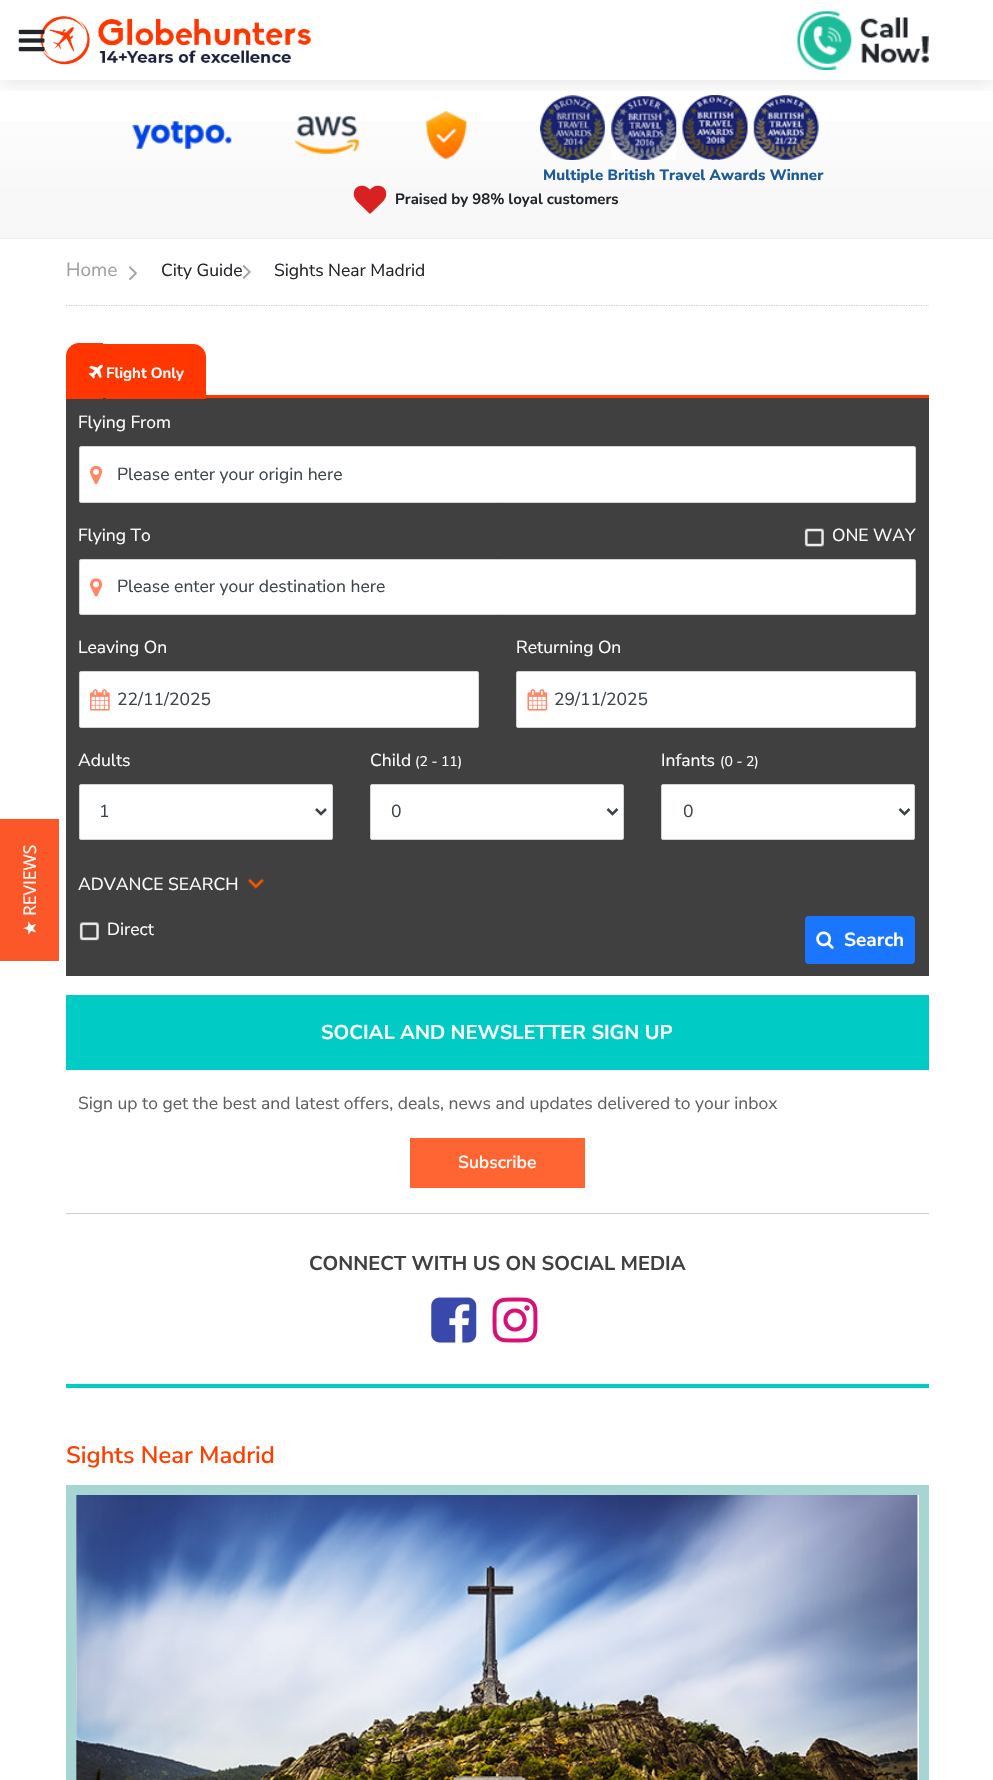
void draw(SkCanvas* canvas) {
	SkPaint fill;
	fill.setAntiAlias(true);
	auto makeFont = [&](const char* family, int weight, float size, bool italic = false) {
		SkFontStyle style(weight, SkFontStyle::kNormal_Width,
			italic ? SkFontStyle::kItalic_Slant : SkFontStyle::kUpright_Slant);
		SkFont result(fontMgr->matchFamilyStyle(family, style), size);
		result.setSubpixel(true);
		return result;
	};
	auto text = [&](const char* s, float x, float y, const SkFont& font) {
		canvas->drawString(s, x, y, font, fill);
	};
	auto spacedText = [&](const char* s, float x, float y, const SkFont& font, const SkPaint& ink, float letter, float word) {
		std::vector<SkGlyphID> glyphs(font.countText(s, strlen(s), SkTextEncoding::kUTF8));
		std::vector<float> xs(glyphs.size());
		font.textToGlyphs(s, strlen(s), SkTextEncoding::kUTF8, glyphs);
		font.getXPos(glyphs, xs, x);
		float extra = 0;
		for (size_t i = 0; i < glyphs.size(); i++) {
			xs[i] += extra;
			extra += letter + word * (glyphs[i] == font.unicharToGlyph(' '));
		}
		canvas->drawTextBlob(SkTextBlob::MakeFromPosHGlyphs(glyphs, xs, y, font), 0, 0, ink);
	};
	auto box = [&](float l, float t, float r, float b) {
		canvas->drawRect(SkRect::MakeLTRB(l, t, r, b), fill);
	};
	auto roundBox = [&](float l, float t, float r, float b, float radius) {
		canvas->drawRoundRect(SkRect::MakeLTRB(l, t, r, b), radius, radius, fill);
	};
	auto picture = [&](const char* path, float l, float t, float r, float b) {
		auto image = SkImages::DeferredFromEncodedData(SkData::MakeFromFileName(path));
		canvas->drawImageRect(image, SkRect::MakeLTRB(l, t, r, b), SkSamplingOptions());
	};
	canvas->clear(0xFFFFFFFF);
	{
		const SkColor colors[] = {0xFFF8F8F8, 0xFFFFFFFF};
		const float stops[] = {0.28f, 1};
		const SkPoint ends[] = {{497, 238}, {497, 80}};
		fill.setShader(SkGradientShader::MakeLinear(ends, colors, stops, 2, SkTileMode::kClamp));
		fill.setAlpha(255);
	}
	box(0, 121, 993, 238);
	picture("image5.png", 426, 111, 467, 159);
	picture("image6.png", 540, 95, 605, 160);
	picture("image7.png", 611, 96, 677, 160);
	picture("image8.png", 682, 95, 748, 160);
	picture("image9.png", 753, 95, 819, 160);
	canvas->save();
	canvas->clipRect(SkRect::MakeLTRB(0, 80, 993, 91));
	fill.setShader(nullptr);
	fill.setColor(0x1A000000);
	fill.setMaskFilter(SkMaskFilter::MakeBlur(kNormal_SkBlurStyle, 9.5f));
	canvas->drawRect(SkRect::MakeLTRB(0, 3, 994, 83), fill);
	fill.setMaskFilter(nullptr);
	canvas->restore();
	picture("image1.png", 40, 16, 311, 65);
	picture("image0.png", 18, 29, 45, 52);
	fill.setColor(0xFFFC5729);
	box(0, 819, 59, 961);
	picture("image2.png", 797, 11, 929, 70);
	fill.setColor(0xFFEFEDED);
	box(0, 238, 993, 239);
	picture("image3.png", 132, 121, 232, 149);
	picture("image4.png", 294, 116, 359, 154);
	picture("image10.png", 353, 185, 387, 214);
	fill.setStyle(SkPaint::kStroke_Style);
	fill.setStrokeWidth(1.2f);
	fill.setColor(0xFFCCCCCC);
	fill.setPathEffect(SkDashPathEffect::Make({{1.25f, 1.25f}}, 0));
	canvas->drawPath(SkPathBuilder().moveTo(66, 305.5f).lineTo(929, 305.5f).detach(), fill);
	fill.setPathEffect(nullptr);
	picture("image11.png", 129, 266, 137, 281);
	picture("image12.png", 242, 265, 251, 279);
	fill.setStyle(SkPaint::kFill_Style);
	fill.setColor(0xFFFF3600);
	box(103, 395, 929, 398);
	fill.setColor(0xFF404040);
	box(66, 398, 929, 976);
	fill.setColor(0xFFFF3600);
	canvas->drawPath(SkPathBuilder().moveTo(79, 343).lineTo(103, 343).lineTo(103, 399).lineTo(66, 399).lineTo(66, 356).cubicTo(66, 349, 72, 343, 79, 343).close().detach(), fill);
	box(103, 344, 106, 396);
	canvas->drawPath(SkPathBuilder().moveTo(106, 344).lineTo(193, 344).cubicTo(200, 344, 206, 350, 206, 357).lineTo(206, 399).lineTo(106, 399).close().detach(), fill);
	picture("image13.png", 88, 364, 103, 379);
	fill.setColor(0xFFFFFFFF);
	canvas->drawRoundRect(SkRect::MakeLTRB(79.5f, 446.5f, 915.5f, 502.5f), 1.5f, 1.5f, fill);
	fill.setStyle(SkPaint::kStroke_Style);
	fill.setStrokeWidth(1);
	fill.setColor(0xFFCED4DA);
	canvas->drawRoundRect(SkRect::MakeLTRB(79.5f, 446.5f, 915.5f, 502.5f), 1.5f, 1.5f, fill);
	picture("image14.png", 90, 465, 103, 484);
	picture("image15.png", 804, 528, 824, 547);
	fill.setStyle(SkPaint::kFill_Style);
	fill.setColor(0xFFFFFFFF);
	canvas->drawRoundRect(SkRect::MakeLTRB(79.5f, 559.5f, 915.5f, 614.5f), 1.5f, 1.5f, fill);
	fill.setStyle(SkPaint::kStroke_Style);
	fill.setColor(0xFFCED4DA);
	canvas->drawRoundRect(SkRect::MakeLTRB(79.5f, 559.5f, 915.5f, 614.5f), 1.5f, 1.5f, fill);
	picture("image16.png", 90, 578, 103, 597);
	fill.setStyle(SkPaint::kFill_Style);
	fill.setColor(0xFFFFFFFF);
	canvas->drawRoundRect(SkRect::MakeLTRB(79.5f, 671.5f, 478.5f, 727.5f), 1.5f, 1.5f, fill);
	fill.setStyle(SkPaint::kStroke_Style);
	fill.setColor(0xFFCED4DA);
	canvas->drawRoundRect(SkRect::MakeLTRB(79.5f, 671.5f, 478.5f, 727.5f), 1.5f, 1.5f, fill);
	picture("image17.png", 90, 689, 110, 711);
	fill.setStyle(SkPaint::kFill_Style);
	fill.setColor(0xFFFFFFFF);
	canvas->drawRoundRect(SkRect::MakeLTRB(516.5f, 671.5f, 915.5f, 727.5f), 1.5f, 1.5f, fill);
	fill.setStyle(SkPaint::kStroke_Style);
	fill.setColor(0xFFCED4DA);
	canvas->drawRoundRect(SkRect::MakeLTRB(516.5f, 671.5f, 915.5f, 727.5f), 1.5f, 1.5f, fill);
	picture("image18.png", 527, 689, 548, 711);
	fill.setStyle(SkPaint::kFill_Style);
	fill.setColor(0xFFFFFFFF);
	canvas->drawRoundRect(SkRect::MakeLTRB(79.5f, 784.5f, 332.5f, 839.5f), 1.5f, 1.5f, fill);
	fill.setStyle(SkPaint::kStroke_Style);
	fill.setColor(0xFFCED4DA);
	canvas->drawRoundRect(SkRect::MakeLTRB(79.5f, 784.5f, 332.5f, 839.5f), 1.5f, 1.5f, fill);
	fill.setStrokeWidth(2.5f);
	fill.setColor(0xFF3B444B);
	canvas->drawPath(SkPathBuilder().moveTo(316, 809).lineTo(321, 814).lineTo(326, 809).detach(), fill);
	fill.setStyle(SkPaint::kFill_Style);
	fill.setColor(0xFFFFFFFF);
	canvas->drawRoundRect(SkRect::MakeLTRB(370.5f, 784.5f, 623.5f, 839.5f), 1.5f, 1.5f, fill);
	fill.setStyle(SkPaint::kStroke_Style);
	fill.setStrokeWidth(1);
	fill.setColor(0xFFCED4DA);
	canvas->drawRoundRect(SkRect::MakeLTRB(370.5f, 784.5f, 623.5f, 839.5f), 1.5f, 1.5f, fill);
	fill.setStrokeWidth(2.5f);
	fill.setColor(0xFF3B444B);
	canvas->drawPath(SkPathBuilder().moveTo(607.5f, 809).lineTo(612.5f, 814).lineTo(617.5f, 809).detach(), fill);
	fill.setStyle(SkPaint::kFill_Style);
	fill.setColor(0xFFFFFFFF);
	canvas->drawRoundRect(SkRect::MakeLTRB(661.5f, 784.5f, 914.5f, 839.5f), 1.5f, 1.5f, fill);
	fill.setStyle(SkPaint::kStroke_Style);
	fill.setStrokeWidth(1);
	fill.setColor(0xFFCED4DA);
	canvas->drawRoundRect(SkRect::MakeLTRB(661.5f, 784.5f, 914.5f, 839.5f), 1.5f, 1.5f, fill);
	fill.setStrokeWidth(2.5f);
	fill.setColor(0xFF3B444B);
	canvas->drawPath(SkPathBuilder().moveTo(899.5f, 809).lineTo(904.5f, 814).lineTo(909.5f, 809).detach(), fill);
	picture("image19.png", 247, 878, 264, 889);
	picture("image20.png", 79, 922, 99, 941);
	fill.setStyle(SkPaint::kFill_Style);
	fill.setColor(0xFF1B76FF);
	roundBox(805, 916, 915, 964, 4);
	picture("image21.png", 816, 931, 834, 949);
	fill.setColor(0xFF00CCC5);
	box(66, 995, 929, 1070);
	fill.setColor(0xFFFF6533);
	box(410, 1138, 585, 1188);
	fill.setColor(0xFFCCCCCC);
	box(66, 1213, 929, 1214);
	picture("image22.png", 431, 1297, 477, 1343);
	picture("image23.png", 492, 1297, 538, 1343);
	fill.setColor(0xFF00CCC5);
	box(66, 1384, 929, 1388);
	fill.setStyle(SkPaint::kStroke_Style);
	fill.setStrokeWidth(10);
	fill.setColor(0xFFA6D5D3);
	canvas->drawRect(SkRect::MakeLTRB(71, 1490, 924, 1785), fill);
	picture("image24.png", 76, 1495, 918, 1780);
	auto font1 = makeFont("Open Sans", 400, 17.5f);
	fill.setStyle(SkPaint::kFill_Style);
	fill.setColor(0xFFFFFFFF);
	canvas->save();
	canvas->rotate(-90, 36, 916);
	text("REVIEWS", 36, 916, font1);
	canvas->restore();
	auto font2 = makeFont("DejaVu Sans", 400, 17.5f);
	canvas->save();
	canvas->rotate(-90, 36, 936);
	text("★", 36, 936, font2);
	canvas->restore();
	auto font3 = makeFont("Nunito Sans", 800, 15);
	fill.setColor(0xFF1C5A99);
	spacedText("Multiple British Travel Awards Winner", 543, 180, font3, fill, 0.1f, 0);
	auto font4 = makeFont("Nunito Sans", 700, 15);
	fill.setColor(0xFF212529);
	text("Praised by 98% loyal customers", 395, 204, font4);
	auto font5 = makeFont("Nunito Sans", 400, 19);
	fill.setColor(0xFFA1A1A1);
	text("Home", 66, 276, font5);
	auto font6 = makeFont("Nunito Sans", 400, 17.5f);
	fill.setColor(0xFF212529);
	text("City Guide", 161, 276, font6);
	text("Sights Near Madrid", 274, 276, font6);
	fill.setColor(0xFFFFFFFF);
	text("Flight Only", 106, 378, font4);
	text("Flying From", 78, 428, font6);
	fill.setColor(0xFF3B444B);
	text("Please enter your origin here", 117, 480, font6);
	fill.setColor(0xFFFFFFFF);
	text("Flying To", 78, 541, font6);
	text("ONE WAY", 832, 541, font6);
	fill.setColor(0xFF3B444B);
	text("Please enter your destination here", 117, 592, font6);
	fill.setColor(0xFFFFFFFF);
	text("Leaving On", 78, 653, font6);
	fill.setColor(0xFF3B444B);
	text("22/11/2025", 117, 705, font6);
	fill.setColor(0xFFFFFFFF);
	text("Returning On", 516, 653, font6);
	fill.setColor(0xFF3B444B);
	text("29/11/2025", 554, 705, font6);
	fill.setColor(0xFFFFFFFF);
	text("Adults", 78, 766, font6);
	fill.setColor(0xFF3B444B);
	text("1", 99, 817, font6);
	fill.setColor(0xFFFFFFFF);
	text("Child", 370, 766, font6);
	auto font7 = makeFont("Nunito Sans", 400, 14);
	text("(2 - 11)", 415, 766, font7);
	fill.setColor(0xFF3B444B);
	text("0", 391, 817, font6);
	fill.setColor(0xFFFFFFFF);
	text("Infants", 661, 766, font6);
	text("(0 - 2)", 720, 766, font7);
	fill.setColor(0xFF3B444B);
	text("0", 683, 817, font6);
	fill.setColor(0xFFFFFFFF);
	text("ADVANCE SEARCH", 78, 890, font6);
	text("Direct", 107, 935, font6);
	auto font8 = makeFont("Nunito Sans", 700, 19);
	text("Search", 844, 946, font8);
	auto font9 = makeFont("Nunito Sans", 700, 20);
	text("SOCIAL AND NEWSLETTER SIGN UP", 321, 1039, font9);
	fill.setColor(0xFF606060);
	text("Sign up to get the best and latest offers, deals, news and updates delivered to your inbox", 78, 1109, font6);
	auto font10 = makeFont("Nunito Sans", 600, 17.5f);
	fill.setColor(0xFFFFFFFF);
	text("Subscribe", 458, 1168, font10);
	fill.setColor(0xFF404040);
	text("CONNECT WITH US ON SOCIAL MEDIA", 309, 1270, font9);
	auto font11 = makeFont("Nunito Sans", 600, 23.75f);
	fill.setColor(0xFFFF3E00);
	text("Sights Near Madrid", 66, 1463, font11);
}
